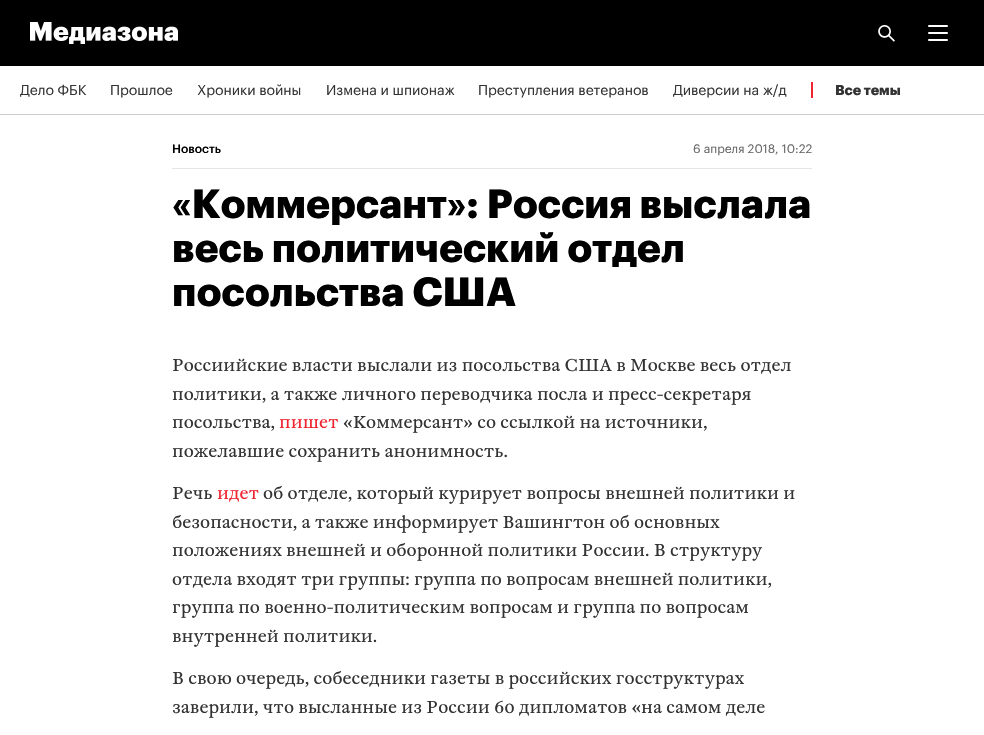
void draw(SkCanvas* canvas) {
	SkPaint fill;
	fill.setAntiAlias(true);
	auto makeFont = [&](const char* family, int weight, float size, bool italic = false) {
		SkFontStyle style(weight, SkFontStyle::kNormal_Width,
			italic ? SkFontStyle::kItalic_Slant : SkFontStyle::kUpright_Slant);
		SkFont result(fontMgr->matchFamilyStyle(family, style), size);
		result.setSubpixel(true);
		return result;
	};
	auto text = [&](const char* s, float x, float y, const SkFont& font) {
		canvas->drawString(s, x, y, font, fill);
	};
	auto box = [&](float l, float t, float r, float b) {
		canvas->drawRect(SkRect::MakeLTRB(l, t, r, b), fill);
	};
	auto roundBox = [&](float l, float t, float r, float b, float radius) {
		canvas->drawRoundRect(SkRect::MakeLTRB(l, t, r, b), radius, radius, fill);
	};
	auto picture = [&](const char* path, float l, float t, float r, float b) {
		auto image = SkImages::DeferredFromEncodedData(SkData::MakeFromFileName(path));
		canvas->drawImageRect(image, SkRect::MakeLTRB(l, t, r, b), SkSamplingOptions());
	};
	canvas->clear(0xFFFFFFFF);
	fill.setColor(0xFF000000);
	box(0, 0, 984, 66);
	picture("image0.png", 30, 22, 52, 41);
	picture("image1.png", 53, 26, 178, 44);
	picture("image2.png", 878, 25, 895, 42);
	fill.setColor(0xFFFFFFFF);
	roundBox(928, 25, 948, 27, 1);
	roundBox(928, 32, 948, 34, 1);
	roundBox(928, 39, 948, 41, 1);
	fill.setColor(0xFFCCCCCC);
	box(0, 114, 984, 115);
	fill.setColor(0xFFEF2530);
	box(811, 82, 813, 98);
	fill.setColor(0xFFE5E5E5);
	box(172, 168, 812, 169);
	auto font1 = makeFont("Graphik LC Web", 400, 14);
	fill.setColor(0xFF333333);
	text("Дело ФБК", 20, 95, font1);
	text("Прошлое", 110, 95, font1);
	text("Хроники войны", 197, 95, font1);
	text("Измена и шпионаж", 326, 95, font1);
	text("Преступления ветеранов", 478, 95, font1);
	text("Диверсии на ж/д", 673, 95, font1);
	auto font2 = makeFont("Graphik LC Web", 700, 14);
	text("Все темы", 835, 95, font2);
	auto font3 = makeFont("Graphik LC Web", 500, 12);
	fill.setColor(0xFF000000);
	text("Новость", 172, 153, font3);
	auto font4 = makeFont("Graphik LC Web", 400, 12);
	fill.setColor(0xFF666666);
	text("6 апреля 2018, 10:22", 693, 153, font4);
	auto font5 = makeFont("Graphik LC Web", 700, 40);
	fill.setColor(0xFF000000);
	text("«Коммерсант»: Россия выслала", 172, 218, font5);
	text("весь политический отдел", 172, 262, font5);
	text("посольства США", 172, 306, font5);
	auto font6 = makeFont("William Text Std", 400, 17);
	fill.setColor(0xFF333333);
	text("Россиийские власти выслали из посольства США в Москве весь отдел", 172, 371, font6);
	text("политики, а также личного переводчика посла и пресс-секретаря", 172, 400, font6);
	text("посольства,", 172, 428, font6);
	fill.setColor(0xFFEF2530);
	text("пишет", 279, 428, font6);
	fill.setColor(0xFF333333);
	text("«Коммерсант» со ссылкой на источники,", 343, 428, font6);
	text("пожелавшие сохранить анонимность.", 172, 457, font6);
	text("Речь", 172, 499, font6);
	fill.setColor(0xFFEF2530);
	text("идет", 217, 499, font6);
	fill.setColor(0xFF333333);
	text("об отделе, который курирует вопросы внешней политики и", 263, 499, font6);
	text("безопасности, а также информирует Вашингтон об основных", 172, 528, font6);
	text("положениях внешней и оборонной политики России. В структуру", 172, 556, font6);
	text("отдела входят три группы: группа по вопросам внешней политики,", 172, 585, font6);
	text("группа по военно-политическим вопросам и группа по вопросам", 172, 613, font6);
	text("внутренней политики.", 172, 642, font6);
	text("В свою очередь, собеседники газеты в российских госструктурах", 172, 684, font6);
	text("заверили, что высланные из России 60 дипломатов «на самом деле", 172, 713, font6);
}
